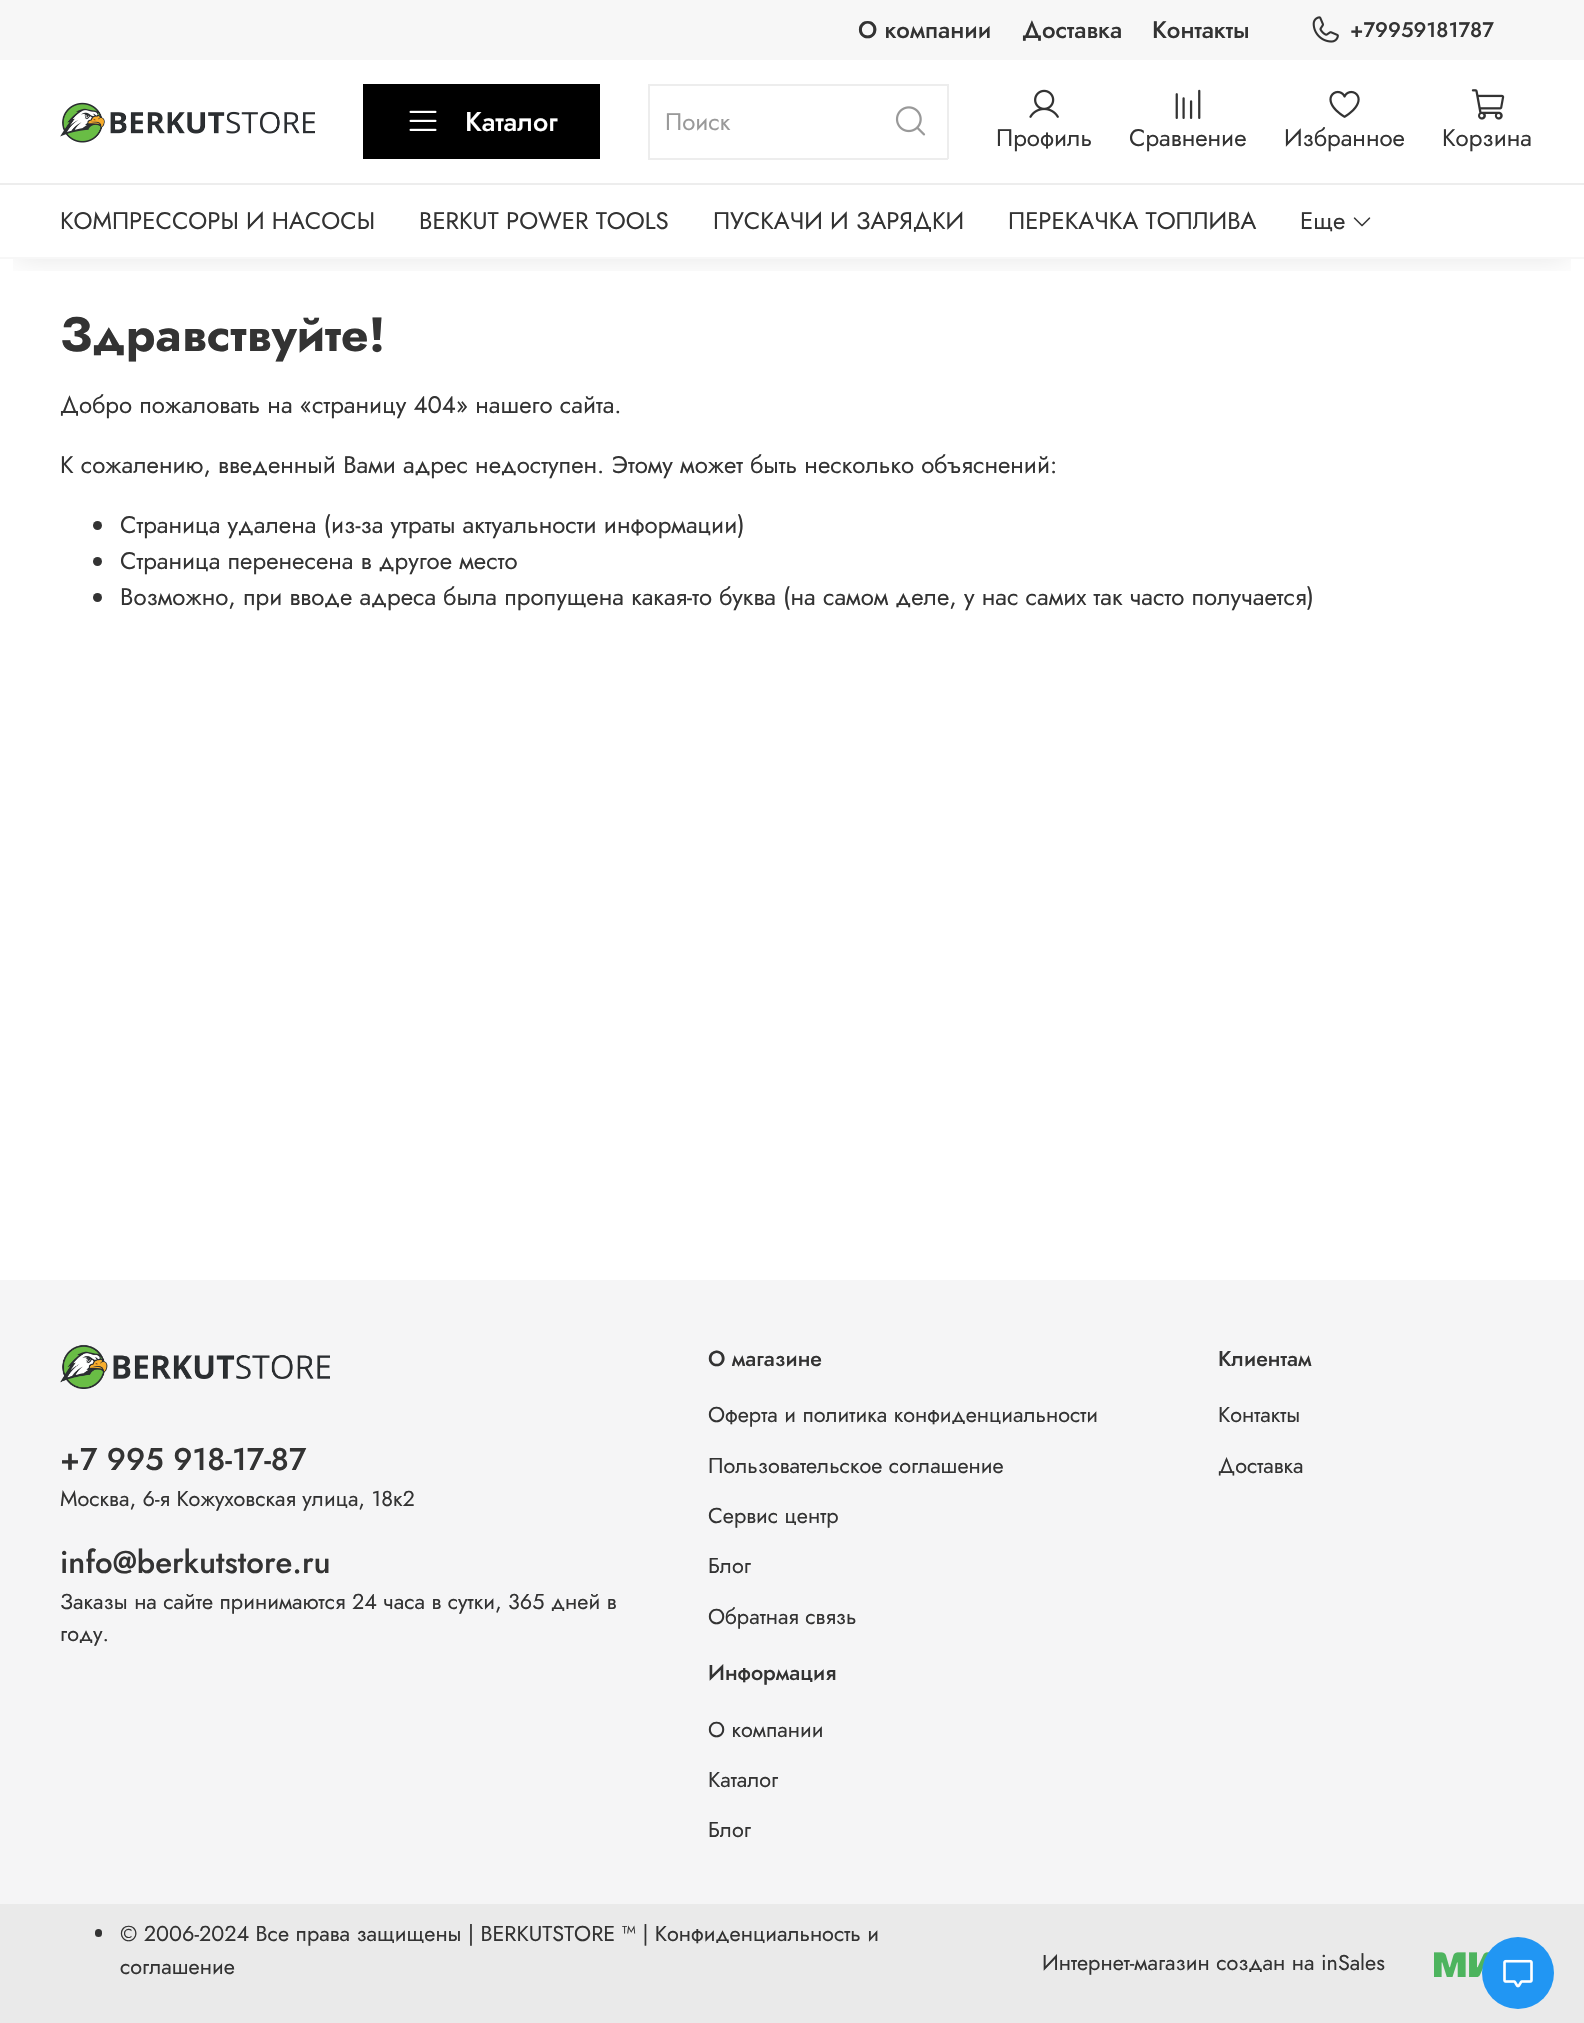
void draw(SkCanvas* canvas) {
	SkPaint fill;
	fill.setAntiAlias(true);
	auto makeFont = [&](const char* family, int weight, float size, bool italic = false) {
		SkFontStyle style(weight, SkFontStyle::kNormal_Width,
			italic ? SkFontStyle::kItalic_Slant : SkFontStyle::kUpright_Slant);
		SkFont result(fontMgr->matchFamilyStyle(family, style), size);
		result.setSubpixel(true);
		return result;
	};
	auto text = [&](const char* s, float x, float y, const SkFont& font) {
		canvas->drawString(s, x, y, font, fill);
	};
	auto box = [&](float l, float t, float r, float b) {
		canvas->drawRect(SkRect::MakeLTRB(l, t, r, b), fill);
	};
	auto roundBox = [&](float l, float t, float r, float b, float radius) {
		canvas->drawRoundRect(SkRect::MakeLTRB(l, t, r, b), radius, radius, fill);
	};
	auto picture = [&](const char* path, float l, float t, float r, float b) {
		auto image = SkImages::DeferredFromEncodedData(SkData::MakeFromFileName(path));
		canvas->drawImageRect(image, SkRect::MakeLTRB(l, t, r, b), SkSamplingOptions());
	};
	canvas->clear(0xFFFFFFFF);
	fill.setColor(0xFFF7F7F7);
	box(0, 0, 1584, 60);
	picture("image0.png", 1312, 16, 1339, 43);
	fill.setColor(0xFFEDEDED);
	box(0, 183, 1584, 185);
	picture("image1.png", 60, 102, 315, 143);
	fill.setColor(0xFF000000);
	box(363, 84, 600, 159);
	picture("image2.png", 409, 110, 437, 131);
	fill.setColor(0xFFEDEDED);
	box(648, 84, 948, 86);
	box(648, 158, 873, 160);
	box(648, 84, 650, 159);
	box(947, 84, 949, 159);
	box(873, 158, 948, 160);
	picture("image3.png", 895, 106, 926, 136);
	picture("image4.png", 1029, 89, 1059, 118);
	picture("image5.png", 1175, 89, 1201, 119);
	picture("image6.png", 1329, 90, 1360, 118);
	picture("image7.png", 1471, 89, 1505, 120);
	canvas->save();
	canvas->clipRect(SkRect::MakeLTRB(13, 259, 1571, 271));
	fill.setColor(0x1A000000);
	fill.setMaskFilter(SkMaskFilter::MakeBlur(kNormal_SkBlurStyle, 15));
	canvas->drawRect(SkRect::MakeLTRB(15, 215, 1569, 258), fill);
	fill.setMaskFilter(nullptr);
	canvas->restore();
	fill.setColor(0xFFF7F7F7);
	box(0, 257, 1584, 259);
	picture("image8.png", 1353, 217, 1371, 227);
	fill.setColor(0xFF333333);
	canvas->drawCircle(97.5f, 525.5f, 4.5f, fill);
	canvas->drawCircle(97.5f, 561.5f, 4.5f, fill);
	canvas->drawCircle(97.5f, 597.5f, 4.5f, fill);
	fill.setColor(0xFFF5F5F6);
	box(0, 1280, 1584, 1904);
	picture("image9.png", 60, 1344, 330, 1389);
	fill.setColor(0xFFEAEAEA);
	box(0, 1904, 1584, 2023);
	fill.setColor(0xFF333333);
	roundBox(95, 1929, 102, 1937, 3.5f);
	picture("image10.png", 1434, 1952, 1489, 1977);
	fill.setColor(0xFF2196F3);
	canvas->drawCircle(1518, 1973, 36, fill);
	picture("image11.png", 1503, 1959, 1533, 1988);
	auto font1 = makeFont("Jost", 500, 24);
	fill.setColor(0xFF333333);
	text("О компании", 858, 38, font1);
	text("Доставка", 1022, 38, font1);
	text("Контакты", 1152, 38, font1);
	auto font2 = makeFont("Jost", 500, 21);
	text("+79959181787", 1350, 37, font2);
	auto font3 = makeFont("Jost", 500, 27);
	fill.setColor(0xFFFFFFFF);
	text("Каталог", 465, 131, font3);
	auto font4 = makeFont("Jost", 400, 24);
	fill.setColor(0xFF999999);
	text("Поиск", 665, 130, font4);
	fill.setColor(0xFF333333);
	text("Профиль", 996, 146, font4);
	text("Сравнение", 1129, 146, font4);
	text("Избранное", 1284, 146, font4);
	text("Корзина", 1442, 146, font4);
	text("КОМПРЕССОРЫ И НАСОСЫ", 60, 229, font4);
	text("BERKUT POWER TOOLS", 419, 229, font4);
	text("ПУСКАЧИ И ЗАРЯДКИ", 713, 229, font4);
	text("ПЕРЕКАЧКА ТОПЛИВА", 1008, 229, font4);
	text("Еще", 1300, 229, font4);
	auto font5 = makeFont("Jost", 700, 48);
	text("Здравствуйте!", 60, 351, font5);
	text("Добро пожаловать на «страницу 404» нашего сайта.", 60, 413, font4);
	text("К сожалению, введенный Вами адрес недоступен. Этому может быть несколько объяснений:", 60, 473, font4);
	text("Страница удалена (из-за утраты актуальности информации)", 120, 533, font4);
	text("Страница перенесена в другое место", 120, 569, font4);
	text("Возможно, при вводе адреса была пропущена какая-то буква (на самом деле, у нас самих так часто получается)", 120, 605, font4);
	auto font6 = makeFont("Jost", 500, 31.25f);
	text("+7 995 918-17-87", 60, 1470, font6);
	auto font7 = makeFont("Jost", 400, 21.6f);
	text("Москва, 6-я Кожуховская улица, 18к2", 60, 1506, font7);
	text("info@berkutstore.ru", 60, 1573, font6);
	text("Заказы на сайте принимаются 24 часа в сутки, 365 дней в", 60, 1609, font7);
	text("году.", 60, 1641, font7);
	auto font8 = makeFont("Jost", 500, 21.6f);
	text("О магазине", 708, 1366, font8);
	text("Оферта и политика конфиденциальности", 708, 1422, font7);
	text("Пользовательское соглашение", 708, 1473, font7);
	text("Сервис центр", 708, 1523, font7);
	text("Блог", 708, 1573, font7);
	text("Обратная связь", 708, 1624, font7);
	text("Клиентам", 1218, 1366, font8);
	text("Контакты", 1218, 1422, font7);
	text("Доставка", 1218, 1473, font7);
	text("Информация", 708, 1680, font8);
	text("О компании", 708, 1737, font7);
	text("Каталог", 708, 1787, font7);
	text("Блог", 708, 1837, font7);
	text("© 2006-2024 Все права защищены | BERKUTSTORE ™ | Конфиденциальность и", 120, 1941, font7);
	text("соглашение", 120, 1974, font7);
	text("Интернет-магазин создан на inSales", 1042, 1970, font7);
}
